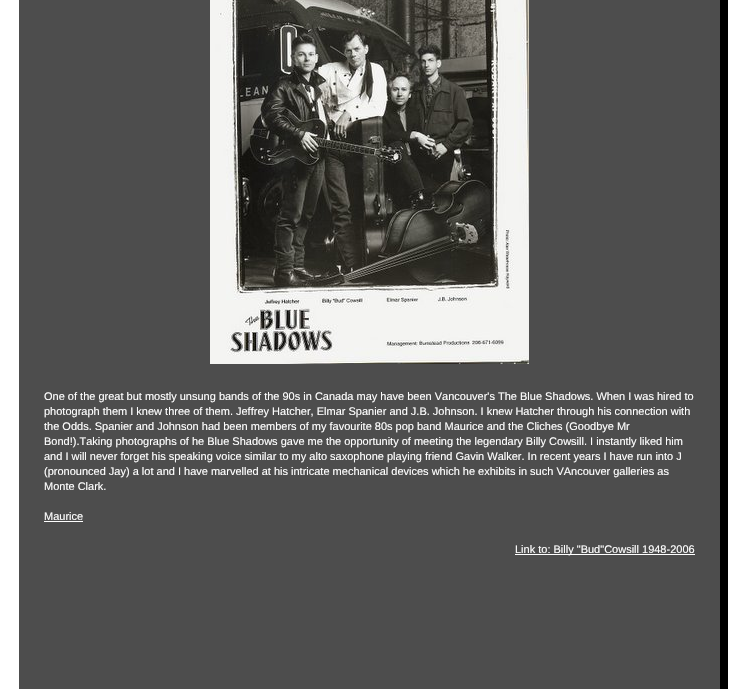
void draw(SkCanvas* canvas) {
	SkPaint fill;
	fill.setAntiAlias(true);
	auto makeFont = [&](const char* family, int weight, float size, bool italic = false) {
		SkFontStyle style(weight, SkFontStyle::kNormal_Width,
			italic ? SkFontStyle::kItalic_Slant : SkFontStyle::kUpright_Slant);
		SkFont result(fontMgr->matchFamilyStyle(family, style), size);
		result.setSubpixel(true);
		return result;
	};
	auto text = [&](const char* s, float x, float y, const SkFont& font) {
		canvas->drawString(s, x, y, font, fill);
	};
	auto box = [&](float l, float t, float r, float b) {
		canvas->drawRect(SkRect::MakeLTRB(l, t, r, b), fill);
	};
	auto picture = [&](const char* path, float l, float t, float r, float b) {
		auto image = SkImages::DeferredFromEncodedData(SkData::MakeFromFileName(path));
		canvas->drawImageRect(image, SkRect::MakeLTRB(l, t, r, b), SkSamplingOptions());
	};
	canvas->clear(0xFFFFFFFF);
	fill.setColor(0xFF4D4D4D);
	box(19, 0, 720, 689);
	fill.setColor(0xFF000000);
	box(720, 0, 728, 689);
	picture("image0.png", 210, 0, 529, 364);
	fill.setColor(0xFFFFFFFF);
	box(44, 521, 83, 522);
	box(515, 554, 695, 555);
	auto font1 = makeFont("Liberation Sans", 400, 11);
	text("One of the great but mostly unsung bands of the 90s in Canada may have been Vancouver's The Blue Shadows. When I was hired to", 44, 400, font1);
	text("photograph them I knew three of them. Jeffrey Hatcher, Elmar Spanier and J.B. Johnson. I knew Hatcher through his connection with", 44, 415, font1);
	text("the Odds. Spanier and Johnson had been members of my favourite 80s pop band Maurice and the Cliches (Goodbye Mr", 44, 430, font1);
	text("Bond!).Taking photographs of he Blue Shadows gave me the opportunity of meeting the legendary Billy Cowsill. I instantly liked him", 44, 445, font1);
	text("and I will never forget his speaking voice similar to my alto saxophone playing friend Gavin Walker. In recent years I have run into J", 44, 460, font1);
	text("(pronounced Jay) a lot and I have marvelled at his intricate mechanical devices which he exhibits in such VAncouver galleries as", 44, 475, font1);
	text("Monte Clark.", 44, 490, font1);
	text("Maurice", 44, 520, font1);
	text("Link to: Billy \"Bud\"Cowsill 1948-2006", 515, 553, font1);
}
